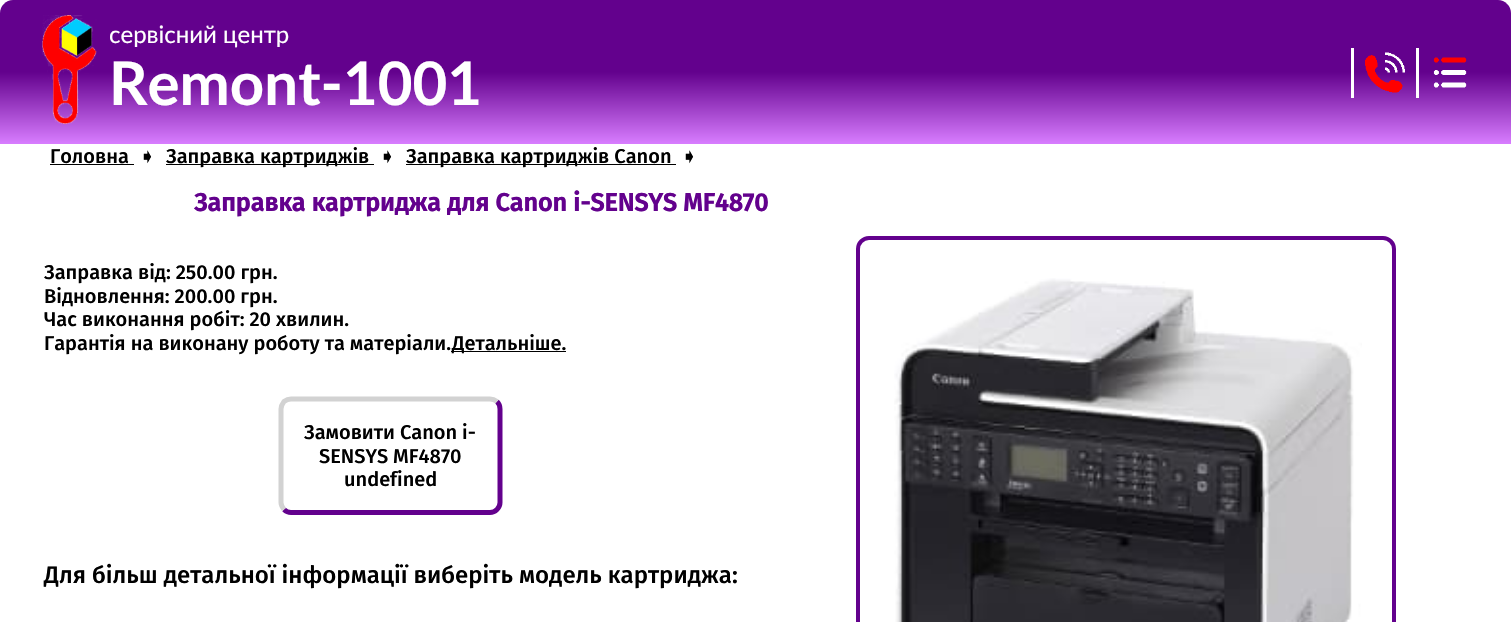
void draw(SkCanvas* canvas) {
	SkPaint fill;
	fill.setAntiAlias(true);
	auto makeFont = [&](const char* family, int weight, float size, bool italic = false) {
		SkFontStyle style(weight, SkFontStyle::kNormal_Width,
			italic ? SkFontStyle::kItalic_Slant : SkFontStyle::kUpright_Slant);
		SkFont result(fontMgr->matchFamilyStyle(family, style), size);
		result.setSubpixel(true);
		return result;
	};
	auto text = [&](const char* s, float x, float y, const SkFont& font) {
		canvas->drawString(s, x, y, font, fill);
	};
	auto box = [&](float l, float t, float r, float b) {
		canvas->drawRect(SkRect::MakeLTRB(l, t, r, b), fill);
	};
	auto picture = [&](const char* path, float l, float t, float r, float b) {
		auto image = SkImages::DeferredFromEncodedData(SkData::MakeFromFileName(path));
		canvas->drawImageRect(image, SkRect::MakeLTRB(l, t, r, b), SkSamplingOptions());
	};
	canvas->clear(0xFFFFFFFF);
	{
		const SkColor colors[] = {0xFF63018D, 0xFFD87DFF};
		const float stops[] = {0.5f, 1};
		const SkPoint ends[] = {{756, 0}, {756, 144}};
		fill.setShader(SkGradientShader::MakeLinear(ends, colors, stops, 2, SkTileMode::kClamp));
		fill.setAlpha(255);
	}
	canvas->drawPath(SkPathBuilder().moveTo(13, 0).lineTo(1498, 0).cubicTo(1505, 0, 1511, 6, 1511, 13).lineTo(1511, 144).lineTo(0, 144).lineTo(0, 13).cubicTo(0, 6, 6, 0, 13, 0).close().detach(), fill);
	picture("image0.png", 42, 15, 97, 124);
	fill.setShader(nullptr);
	fill.setColor(0xFFFFFFFF);
	box(1351, 48, 1354, 98);
	picture("image1.png", 1365, 52, 1405, 93);
	box(1416, 48, 1419, 98);
	picture("image2.png", 1433, 57, 1467, 88);
	fill.setColor(0xFF000000);
	box(50, 164, 134, 165);
	box(166, 164, 374, 165);
	box(406, 164, 676, 165);
	box(451, 351, 566, 352);
	fill.setStyle(SkPaint::kStroke_Style);
	fill.setStrokeWidth(5);
	fill.setColor(0xFF63018D);
	canvas->drawPath(SkPathBuilder().moveTo(497, 401.5f).cubicTo(499, 403.5f, 500, 406, 500, 409).lineTo(500, 502.5f).cubicTo(500, 505, 499, 507.5f, 497, 509.5f).cubicTo(495, 511.5f, 492.5f, 512.5f, 490, 512.5f).lineTo(291, 512.5f).cubicTo(288.5f, 512.5f, 286, 511.5f, 284, 509.5f).detach(), fill);
	fill.setColor(0xFFD2D2D2);
	canvas->drawPath(SkPathBuilder().moveTo(284, 509.5f).cubicTo(282.5f, 507.5f, 281, 505, 281, 502.5f).lineTo(281, 409).cubicTo(281, 406, 282.5f, 403.5f, 284, 401.5f).cubicTo(286, 400, 288.5f, 399, 291, 399).lineTo(490, 399).cubicTo(492.5f, 399, 495, 400, 497, 401.5f).detach(), fill);
	fill.setStrokeWidth(4);
	fill.setColor(0xFF63018D);
	canvas->drawRoundRect(SkRect::MakeLTRB(858, 238, 1394, 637), 11, 11, fill);
	picture("image3.png", 894, 278, 1362, 622);
	auto font1 = makeFont("Lato", 400, 24);
	fill.setStyle(SkPaint::kFill_Style);
	fill.setColor(0xFFFFFFFF);
	text("сервісний центр", 109, 43, font1);
	auto font2 = makeFont("Lato", 700, 60);
	text("Remont-1001", 109, 105, font2);
	auto font3 = makeFont("Fira Sans", 500, 20);
	fill.setColor(0xFF000000);
	text("Головна", 50, 163, font3);
	auto font4 = makeFont("DejaVu Sans", 400, 20);
	text("➧", 139, 163, font4);
	text("Заправка картриджів", 166, 163, font3);
	text("➧", 379, 163, font4);
	text("Заправка картриджів Canon", 406, 163, font3);
	text("➧", 681, 163, font4);
	auto font5 = makeFont("Fira Sans", 700, 25);
	fill.setColor(0xFF63018D);
	text("Заправка картриджа для Canon i-SENSYS MF4870", 194, 211, font5);
	fill.setColor(0xFF000000);
	text("Заправка від: 250.00 грн.", 44, 279, font3);
	text("Відновлення: 200.00 грн.", 44, 303, font3);
	text("Час виконання робіт: 20 хвилин.", 44, 326, font3);
	text("Гарантія на виконану роботу та матеріали.", 44, 350, font3);
	text("Детальніше.", 452, 350, font3);
	text("Замовити Canon i-", 304, 439, font3);
	text("SENSYS MF4870", 319, 463, font3);
	text("undefined", 344, 486, font3);
	auto font6 = makeFont("Fira Sans", 500, 24);
	text("Для більш детальної інформації виберіть модель картриджа:", 44, 583, font6);
}
